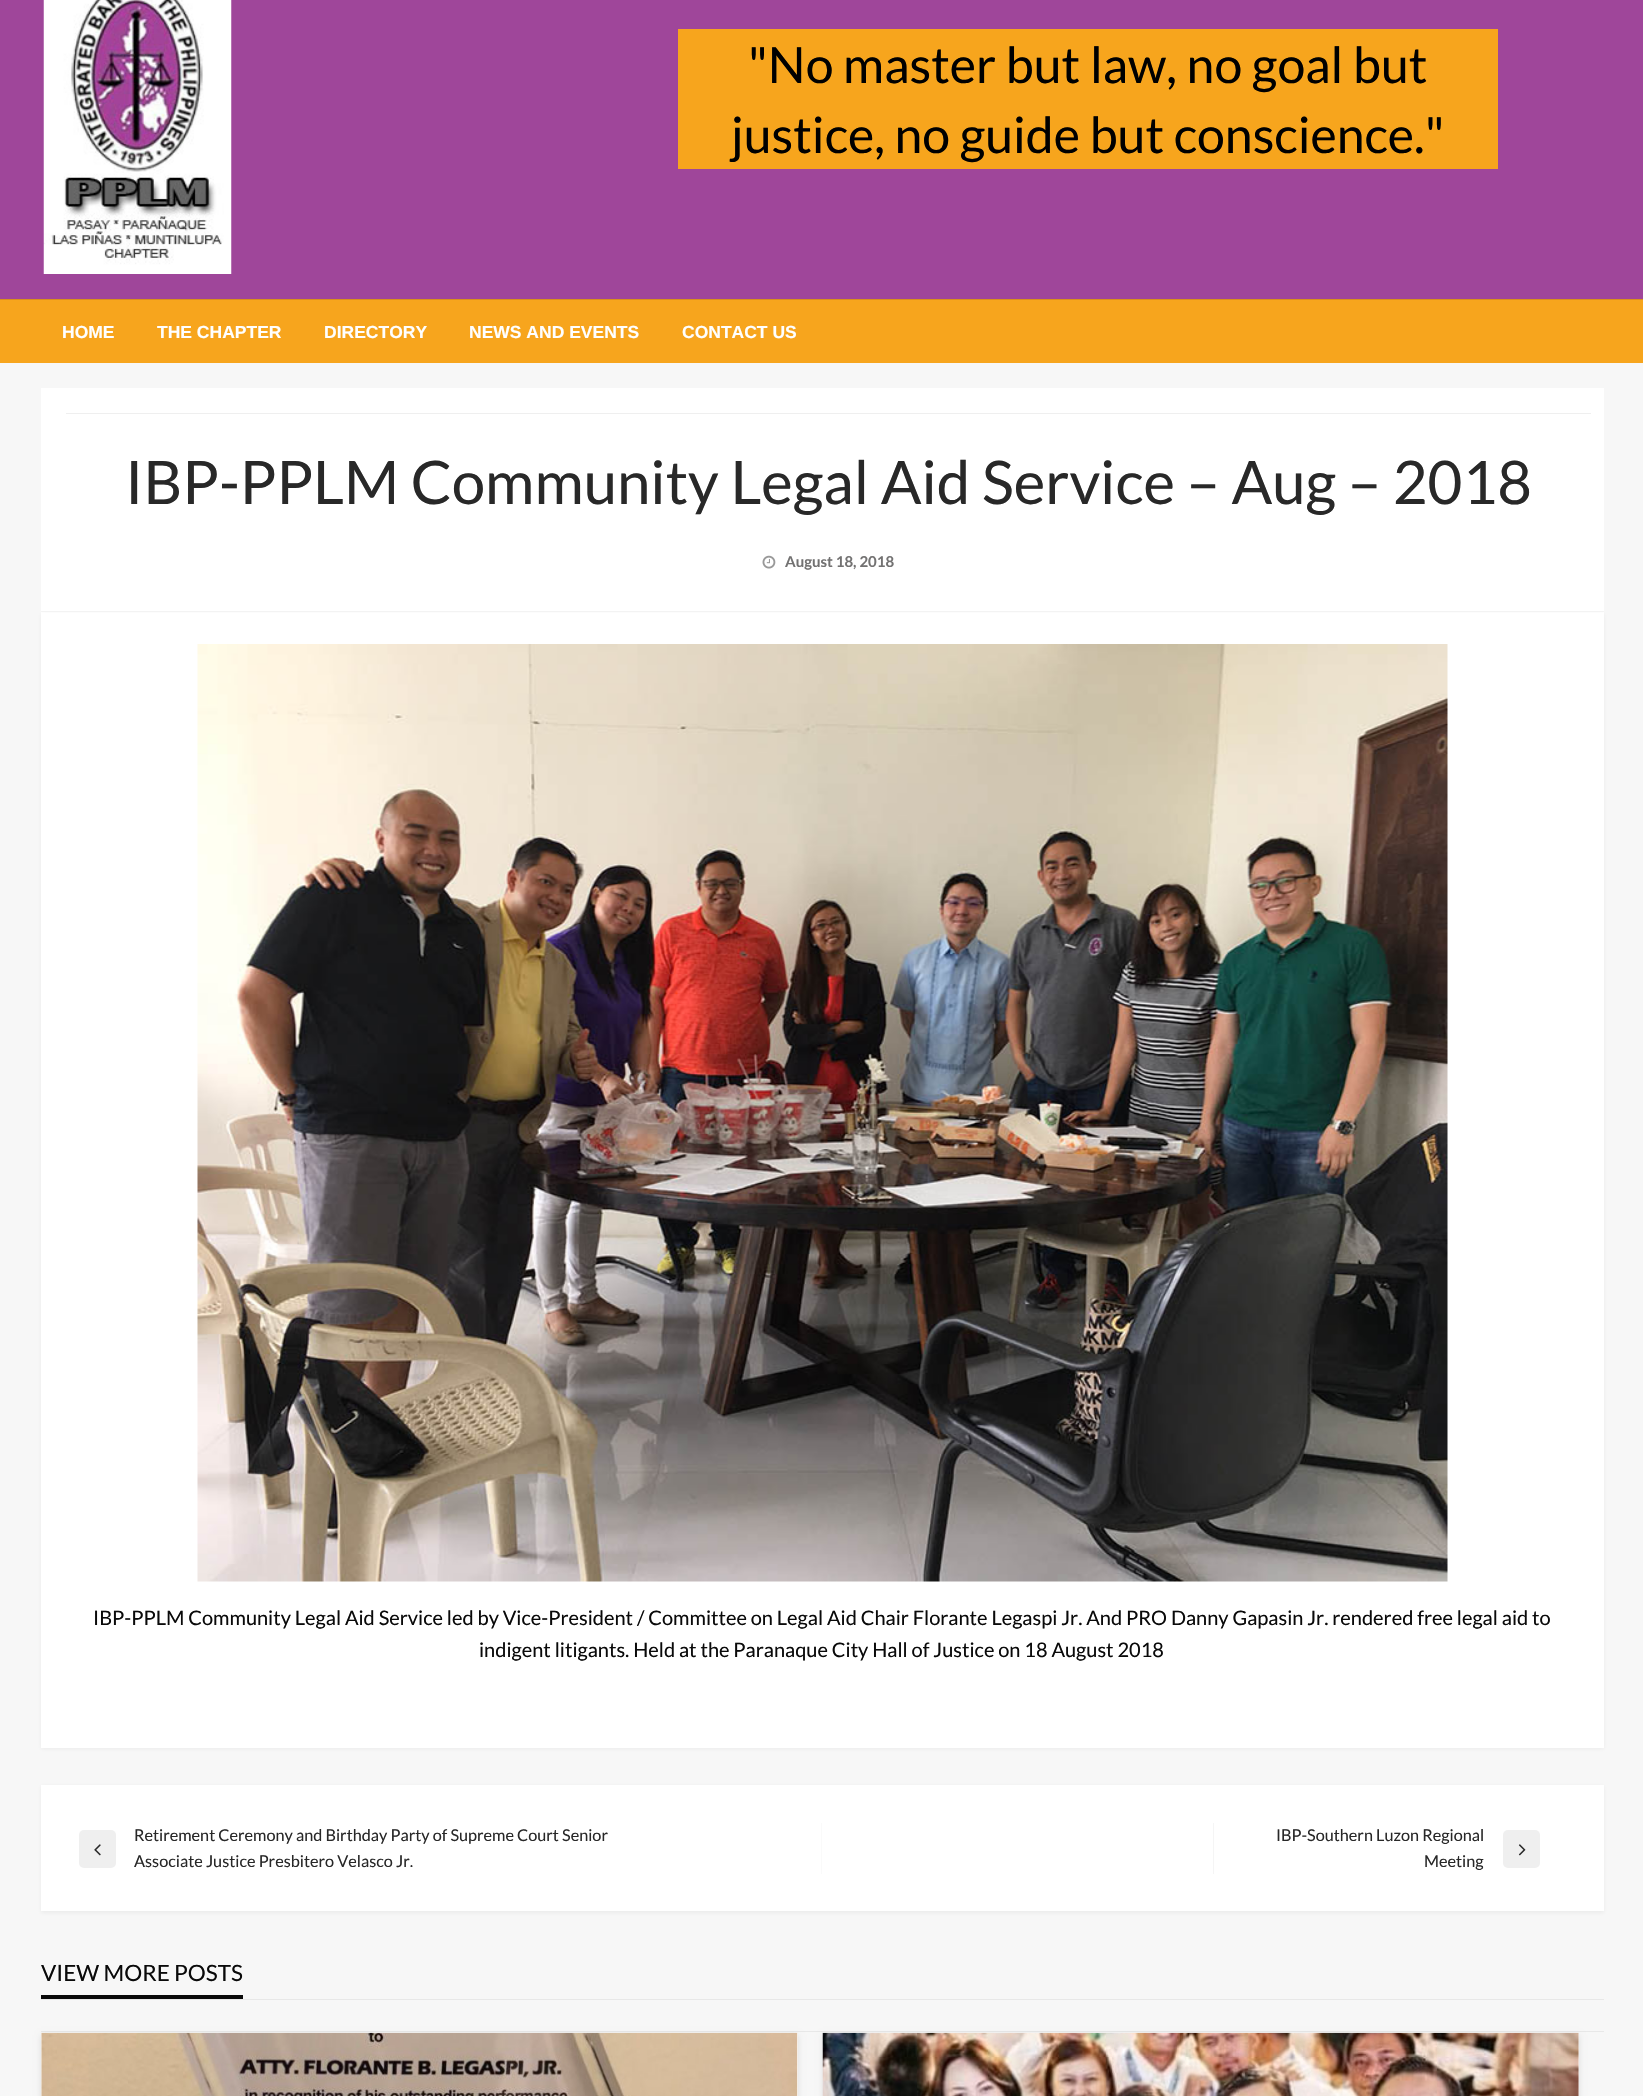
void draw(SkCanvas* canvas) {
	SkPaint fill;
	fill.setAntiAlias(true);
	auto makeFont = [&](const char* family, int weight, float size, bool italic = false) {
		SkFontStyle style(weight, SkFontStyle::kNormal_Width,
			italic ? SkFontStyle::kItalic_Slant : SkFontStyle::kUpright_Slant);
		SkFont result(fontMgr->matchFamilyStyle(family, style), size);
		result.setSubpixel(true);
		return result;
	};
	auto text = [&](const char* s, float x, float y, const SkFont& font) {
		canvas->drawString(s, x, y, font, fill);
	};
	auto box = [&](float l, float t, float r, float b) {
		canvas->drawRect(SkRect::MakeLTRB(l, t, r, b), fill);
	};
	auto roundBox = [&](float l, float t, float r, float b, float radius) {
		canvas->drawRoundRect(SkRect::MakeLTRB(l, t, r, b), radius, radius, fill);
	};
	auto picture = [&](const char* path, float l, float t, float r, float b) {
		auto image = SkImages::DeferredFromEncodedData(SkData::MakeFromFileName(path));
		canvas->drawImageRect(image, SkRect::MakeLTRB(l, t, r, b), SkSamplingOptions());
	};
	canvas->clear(0xFFF7F7F7);
	fill.setColor(0xFF9F469A);
	box(0, 0, 1643, 299);
	picture("image0.png", 43, 0, 232, 274);
	fill.setColor(0xFFF7A51D);
	box(678, 29, 1498, 169);
	box(0, 300, 1643, 363);
	fill.setColor(0xFFD9911A);
	box(0, 299, 1643, 300);
	fill.setColor(0xFFFFFFFF);
	box(41, 388, 1604, 613);
	fill.setColor(0xFFF4F4F4);
	box(41, 611, 1604, 612);
	fill.setColor(0xFFEFEFEF);
	box(66, 413, 1591, 414);
	picture("image1.png", 762, 555, 776, 569);
	fill.setColor(0x0D1C1C1C);
	fill.setMaskFilter(SkMaskFilter::MakeBlur(kNormal_SkBlurStyle, 2));
	canvas->drawRect(SkRect::MakeLTRB(41, 614, 1604, 1749), fill);
	fill.setMaskFilter(nullptr);
	fill.setColor(0xFFFFFFFF);
	box(41, 613, 1604, 1748);
	picture("image2.png", 197, 644, 1448, 1582);
	fill.setColor(0x0D1C1C1C);
	fill.setMaskFilter(SkMaskFilter::MakeBlur(kNormal_SkBlurStyle, 2));
	canvas->drawRect(SkRect::MakeLTRB(41, 1786, 1604, 1913), fill);
	fill.setMaskFilter(nullptr);
	fill.setColor(0xFFFFFFFF);
	box(41, 1785, 1604, 1911);
	fill.setColor(0xFFFAFAFA);
	box(821, 1823, 822, 1874);
	fill.setColor(0xFFEFEFEF);
	roundBox(79, 1830, 116, 1868, 5);
	picture("image3.png", 94, 1844, 101, 1856);
	fill.setColor(0xFFF5F5F5);
	box(1213, 1823, 1214, 1874);
	fill.setColor(0xFFEFEFEF);
	roundBox(1503, 1830, 1540, 1868, 5);
	picture("image4.png", 1518, 1844, 1526, 1856);
	fill.setColor(0xFFE8E8E8);
	box(41, 2031, 1604, 2032);
	box(41, 1999, 1604, 2000);
	fill.setColor(0xFF0A0A0A);
	box(41, 1995, 243, 1999);
	fill.setColor(0x1A000000);
	fill.setMaskFilter(SkMaskFilter::MakeBlur(kNormal_SkBlurStyle, 3));
	canvas->drawRect(SkRect::MakeLTRB(41, 2035, 798, 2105), fill);
	fill.setMaskFilter(nullptr);
	fill.setColor(0xFFFFFFFF);
	box(41, 2033, 798, 2096);
	picture("image5.png", 41, 2032, 798, 2096);
	fill.setColor(0x1A000000);
	fill.setMaskFilter(SkMaskFilter::MakeBlur(kNormal_SkBlurStyle, 3));
	canvas->drawRect(SkRect::MakeLTRB(823, 2035, 1579, 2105), fill);
	fill.setMaskFilter(nullptr);
	fill.setColor(0xFFFFFFFF);
	box(1578, 2033, 1579, 2096);
	picture("image6.png", 822, 2032, 1579, 2096);
	auto font1 = makeFont("Lato", 400, 50);
	fill.setColor(0xFF000000);
	text("\"No master but law, no goal but", 748, 83, font1);
	text("justice, no guide but conscience.\"", 731, 153, font1);
	auto font2 = makeFont("Liberation Sans", 700, 17.5f);
	fill.setColor(0xFFFFFFFF);
	text("HOME", 62, 338, font2);
	text("THE CHAPTER", 157, 338, font2);
	text("DIRECTORY", 324, 338, font2);
	text("NEWS AND EVENTS", 469, 338, font2);
	text("CONTACT US", 682, 338, font2);
	auto font3 = makeFont("Lato", 400, 60);
	fill.setColor(0xFF282828);
	text("IBP-PPLM Community Legal Aid Service – Aug – 2018", 125, 504, font3);
	auto font4 = makeFont("Lato", 700, 15);
	fill.setColor(0xFF737272);
	text("August 18, 2018", 785, 567, font4);
	auto font5 = makeFont("Lato", 400, 20);
	fill.setColor(0xFF0A0A0A);
	text("IBP-PPLM Community Legal Aid Service led by Vice-President / Committee on Legal Aid Chair Florante Legaspi Jr. And PRO Danny Gapasin Jr. rendered free legal aid to", 93, 1625, font5);
	text("indigent litigants. Held at the Paranaque City Hall of Justice on 18 August 2018", 479, 1657, font5);
	auto font6 = makeFont("Lato", 400, 16.25f);
	fill.setColor(0xFF282828);
	text("Retirement Ceremony and Birthday Party of Supreme Court Senior", 134, 1841, font6);
	text("Associate Justice Presbitero Velasco Jr.", 134, 1867, font6);
	text("IBP-Southern Luzon Regional", 1276, 1841, font6);
	text("Meeting", 1424, 1867, font6);
	auto font7 = makeFont("Lato", 400, 22.5f);
	fill.setColor(0xFF0A0A0A);
	text("VIEW MORE POSTS", 41, 1981, font7);
}
